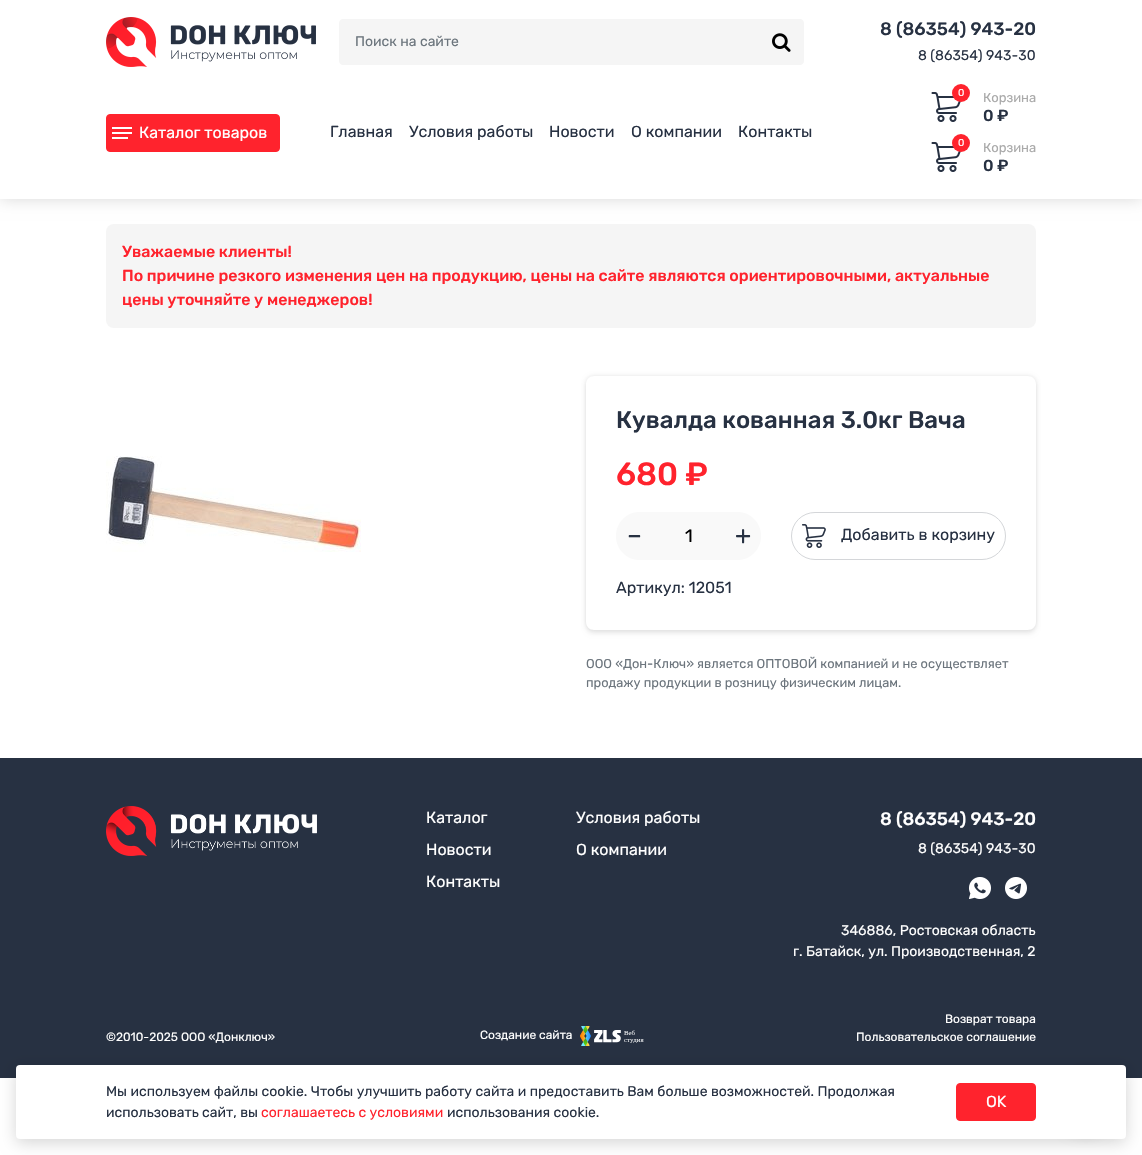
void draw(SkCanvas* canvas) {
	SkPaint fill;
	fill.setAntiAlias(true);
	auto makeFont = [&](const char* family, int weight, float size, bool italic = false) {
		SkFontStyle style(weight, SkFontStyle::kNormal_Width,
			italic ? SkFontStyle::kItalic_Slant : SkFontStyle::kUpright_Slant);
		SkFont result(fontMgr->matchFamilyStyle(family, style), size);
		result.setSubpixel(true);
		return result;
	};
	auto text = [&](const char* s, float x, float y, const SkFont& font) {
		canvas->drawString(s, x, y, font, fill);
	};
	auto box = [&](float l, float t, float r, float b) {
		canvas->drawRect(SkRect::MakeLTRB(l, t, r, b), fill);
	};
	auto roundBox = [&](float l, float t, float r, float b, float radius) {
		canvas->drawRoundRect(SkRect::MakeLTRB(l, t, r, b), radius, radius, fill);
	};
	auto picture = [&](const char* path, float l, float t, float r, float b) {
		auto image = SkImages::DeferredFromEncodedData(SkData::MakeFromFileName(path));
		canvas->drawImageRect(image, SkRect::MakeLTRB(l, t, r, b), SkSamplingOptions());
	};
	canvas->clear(0xFFFFFFFF);
	fill.setColor(0x26000000);
	fill.setMaskFilter(SkMaskFilter::MakeBlur(kNormal_SkBlurStyle, 7.5f));
	canvas->drawRect(SkRect::MakeLTRB(0, 0, 1142, 199), fill);
	fill.setMaskFilter(nullptr);
	fill.setColor(0xFFFFFFFF);
	box(0, 0, 1142, 199);
	picture("image0.png", 106, 17, 316, 67);
	fill.setColor(0xFFF5F5F5);
	canvas->drawPath(SkPathBuilder().moveTo(343, 19).lineTo(760, 19).lineTo(760, 65).lineTo(343, 65).cubicTo(341, 65, 339, 63, 339, 61).lineTo(339, 23).cubicTo(339, 21, 341, 19, 343, 19).close().detach(), fill);
	canvas->drawPath(SkPathBuilder().moveTo(759, 19).lineTo(800, 19).cubicTo(802, 19, 804, 21, 804, 23).lineTo(804, 61).cubicTo(804, 63, 802, 65, 800, 65).lineTo(759, 65).close().detach(), fill);
	picture("image1.png", 772, 33, 791, 52);
	fill.setColor(0xFFFF232D);
	canvas->drawRoundRect(SkRect::MakeLTRB(106.5f, 114.5f, 279.5f, 151.5f), 3.5f, 3.5f, fill);
	fill.setStyle(SkPaint::kStroke_Style);
	fill.setStrokeWidth(1);
	canvas->drawRoundRect(SkRect::MakeLTRB(106.5f, 114.5f, 279.5f, 151.5f), 3.5f, 3.5f, fill);
	fill.setStyle(SkPaint::kFill_Style);
	fill.setColor(0xFFFFFFFF);
	box(112, 132, 132, 134);
	box(112, 127, 132, 129);
	box(112, 137, 128, 139);
	picture("image2.png", 931, 92, 961, 122);
	fill.setColor(0xFFFF232D);
	canvas->drawCircle(961, 93, 9, fill);
	picture("image2.png", 931, 142, 961, 172);
	canvas->drawCircle(961, 143, 9, fill);
	fill.setColor(0xFFF5F5F5);
	roundBox(106, 224, 1036, 328, 8);
	picture("image3.png", 106, 456, 361, 552);
	canvas->save();
	canvas->clipPath(SkPathBuilder(SkPathFillType::kEvenOdd).moveTo(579, 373).lineTo(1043, 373).lineTo(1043, 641).lineTo(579, 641).close().moveTo(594, 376).lineTo(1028, 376).cubicTo(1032.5f, 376, 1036, 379.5f, 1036, 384).lineTo(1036, 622).cubicTo(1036, 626.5f, 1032.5f, 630, 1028, 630).lineTo(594, 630).cubicTo(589.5f, 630, 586, 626.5f, 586, 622).lineTo(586, 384).cubicTo(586, 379.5f, 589.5f, 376, 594, 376).close().detach(), true);
	fill.setColor(0x0F000000);
	fill.setMaskFilter(SkMaskFilter::MakeBlur(kNormal_SkBlurStyle, 2));
	canvas->drawRoundRect(SkRect::MakeLTRB(586, 380, 1036, 634), 8, 8, fill);
	fill.setMaskFilter(nullptr);
	canvas->restore();
	canvas->save();
	canvas->clipPath(SkPathBuilder(SkPathFillType::kEvenOdd).moveTo(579, 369).lineTo(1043, 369).lineTo(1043, 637).lineTo(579, 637).close().moveTo(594, 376).lineTo(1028, 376).cubicTo(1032.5f, 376, 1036, 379.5f, 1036, 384).lineTo(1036, 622).cubicTo(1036, 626.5f, 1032.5f, 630, 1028, 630).lineTo(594, 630).cubicTo(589.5f, 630, 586, 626.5f, 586, 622).lineTo(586, 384).cubicTo(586, 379.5f, 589.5f, 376, 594, 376).close().detach(), true);
	fill.setColor(0x1A000000);
	fill.setMaskFilter(SkMaskFilter::MakeBlur(kNormal_SkBlurStyle, 2));
	canvas->drawRoundRect(SkRect::MakeLTRB(586, 376, 1036, 630), 8, 8, fill);
	fill.setMaskFilter(nullptr);
	canvas->restore();
	fill.setColor(0xFFF9F9F9);
	canvas->drawPath(SkPathBuilder().moveTo(640, 512).lineTo(652, 512).lineTo(652, 560).lineTo(640, 560).cubicTo(626.5f, 560, 616, 549.5f, 616, 536).cubicTo(616, 522.5f, 626.5f, 512, 640, 512).close().detach(), fill);
	box(652, 512, 725, 560);
	canvas->drawPath(SkPathBuilder().moveTo(725, 512).lineTo(737, 512).cubicTo(750.5f, 512, 761, 522.5f, 761, 536).cubicTo(761, 549.5f, 750.5f, 560, 737, 560).lineTo(725, 560).close().detach(), fill);
	fill.setStyle(SkPaint::kStroke_Style);
	fill.setColor(0xFFD4D6D9);
	canvas->drawRoundRect(SkRect::MakeLTRB(791.5f, 512.5f, 1005.5f, 559.5f), 23.5f, 23.5f, fill);
	picture("image4.png", 802, 524, 826, 548);
	fill.setStyle(SkPaint::kFill_Style);
	fill.setColor(0xFF273142);
	box(0, 758, 1142, 1078);
	picture("image5.png", 106, 806, 317, 856);
	picture("image6.png", 969, 877, 991, 899);
	picture("image7.png", 1005, 877, 1027, 899);
	picture("image8.png", 580, 1026, 644, 1046);
	fill.setColor(0x29000000);
	fill.setMaskFilter(SkMaskFilter::MakeBlur(kNormal_SkBlurStyle, 8));
	canvas->drawRoundRect(SkRect::MakeLTRB(16, 1069, 1126, 1143), 4, 4, fill);
	fill.setMaskFilter(nullptr);
	fill.setMaskFilter(SkMaskFilter::MakeBlur(kNormal_SkBlurStyle, 6));
	canvas->drawRoundRect(SkRect::MakeLTRB(1054, 1071, 1118, 1135), 32, 32, fill);
	fill.setMaskFilter(nullptr);
	fill.setColor(0xFFFFFFFF);
	roundBox(16, 1065, 1126, 1139, 4);
	fill.setColor(0xFFFF232D);
	canvas->drawRoundRect(SkRect::MakeLTRB(956.5f, 1083.5f, 1035.5f, 1120.5f), 3.5f, 3.5f, fill);
	fill.setStyle(SkPaint::kStroke_Style);
	canvas->drawRoundRect(SkRect::MakeLTRB(956.5f, 1083.5f, 1035.5f, 1120.5f), 3.5f, 3.5f, fill);
	auto font1 = makeFont("Rubik", 400, 14);
	fill.setStyle(SkPaint::kFill_Style);
	fill.setColor(0xFF6C757D);
	text("Поиск на сайте", 355, 46, font1);
	auto font2 = makeFont("Rubik", 500, 18);
	fill.setColor(0xFF273142);
	text("8 (86354) 943-20", 880, 35, font2);
	text("8 (86354) 943-30", 918, 60, font1);
	auto font3 = makeFont("Rubik", 400, 16);
	fill.setColor(0xFFFFFFFF);
	text("Каталог товаров", 139, 138, font3);
	fill.setColor(0xFF273142);
	text("Главная", 330, 137, font3);
	text("Условия работы", 409, 137, font3);
	text("Новости", 549, 137, font3);
	text("О компании", 631, 137, font3);
	text("Контакты", 738, 137, font3);
	auto font4 = makeFont("Rubik", 400, 10);
	fill.setColor(0xFFFFFFFF);
	text("0", 958, 96, font4);
	auto font5 = makeFont("Rubik", 400, 13);
	fill.setColor(0xFFAAAAAA);
	text("Корзина", 983, 102, font5);
	auto font6 = makeFont("Rubik", 500, 16);
	fill.setColor(0xFF273142);
	text("0 ₽", 983, 121, font6);
	fill.setColor(0xFFFFFFFF);
	text("0", 958, 146, font4);
	fill.setColor(0xFFAAAAAA);
	text("Корзина", 983, 152, font5);
	fill.setColor(0xFF273142);
	text("0 ₽", 983, 171, font6);
	fill.setColor(0xFFFF232D);
	text("Уважаемые клиенты!", 122, 257, font6);
	text("По причине резкого изменения цен на продукцию, цены на сайте являются ориентировочными, актуальные", 122, 281, font6);
	text("цены уточняйте у менеджеров!", 122, 305, font6);
	auto font7 = makeFont("Rubik", 500, 24);
	fill.setColor(0xFF273142);
	text("Кувалда кованная 3.0кг Вача", 616, 428, font7);
	auto font8 = makeFont("Rubik", 500, 32);
	fill.setColor(0xFFFF232D);
	text("680 ₽", 616, 485, font8);
	auto font9 = makeFont("Rubik", 400, 26);
	fill.setColor(0xFF273142);
	text("–", 627, 544, font9);
	auto font10 = makeFont("Rubik", 400, 18);
	fill.setColor(0xFF000000);
	text("1", 685, 542, font10);
	fill.setColor(0xFF273142);
	text("+", 735, 544, font9);
	text("Добавить в корзину", 841, 540, font3);
	text("Артикул: 12051", 616, 593, font3);
	auto font11 = makeFont("Rubik", 400, 12.8f);
	fill.setColor(0xFF6C757D);
	text("ООО «Дон-Ключ» является ОПТОВОЙ компанией и не осуществляет", 586, 668, font11);
	text("продажу продукции в розницу физическим лицам.", 586, 687, font11);
	fill.setColor(0xFFFFFFFF);
	text("Каталог", 426, 823, font3);
	text("Условия работы", 576, 823, font3);
	text("Новости", 426, 855, font3);
	text("О компании", 576, 855, font3);
	text("Контакты", 426, 887, font3);
	text("8 (86354) 943-20", 880, 825, font2);
	text("8 (86354) 943-30", 918, 853, font1);
	text("346886, Ростовская область", 841, 935, font1);
	text("г. Батайск, ул. Производственная, 2", 793, 956, font1);
	auto font12 = makeFont("Rubik", 400, 12);
	text("©2010-2025 ООО «Донключ»", 106, 1041, font12);
	text("Создание сайта", 480, 1039, font12);
	text("Возврат товара", 945, 1023, font12);
	text("Пользовательское соглашение", 856, 1041, font12);
	fill.setColor(0xFF273142);
	text("Мы используем файлы cookie. Чтобы улучшить работу сайта и предоставить Вам больше возможностей. Продолжая", 106, 1096, font1);
	text("использовать сайт, вы", 106, 1117, font1);
	fill.setColor(0xFFFF232D);
	text("соглашаетесь с условиями", 261, 1117, font1);
	fill.setColor(0xFF273142);
	text("использования cookie.", 447, 1117, font1);
	fill.setColor(0xFFFFFFFF);
	text("OK", 986, 1107, font3);
}
